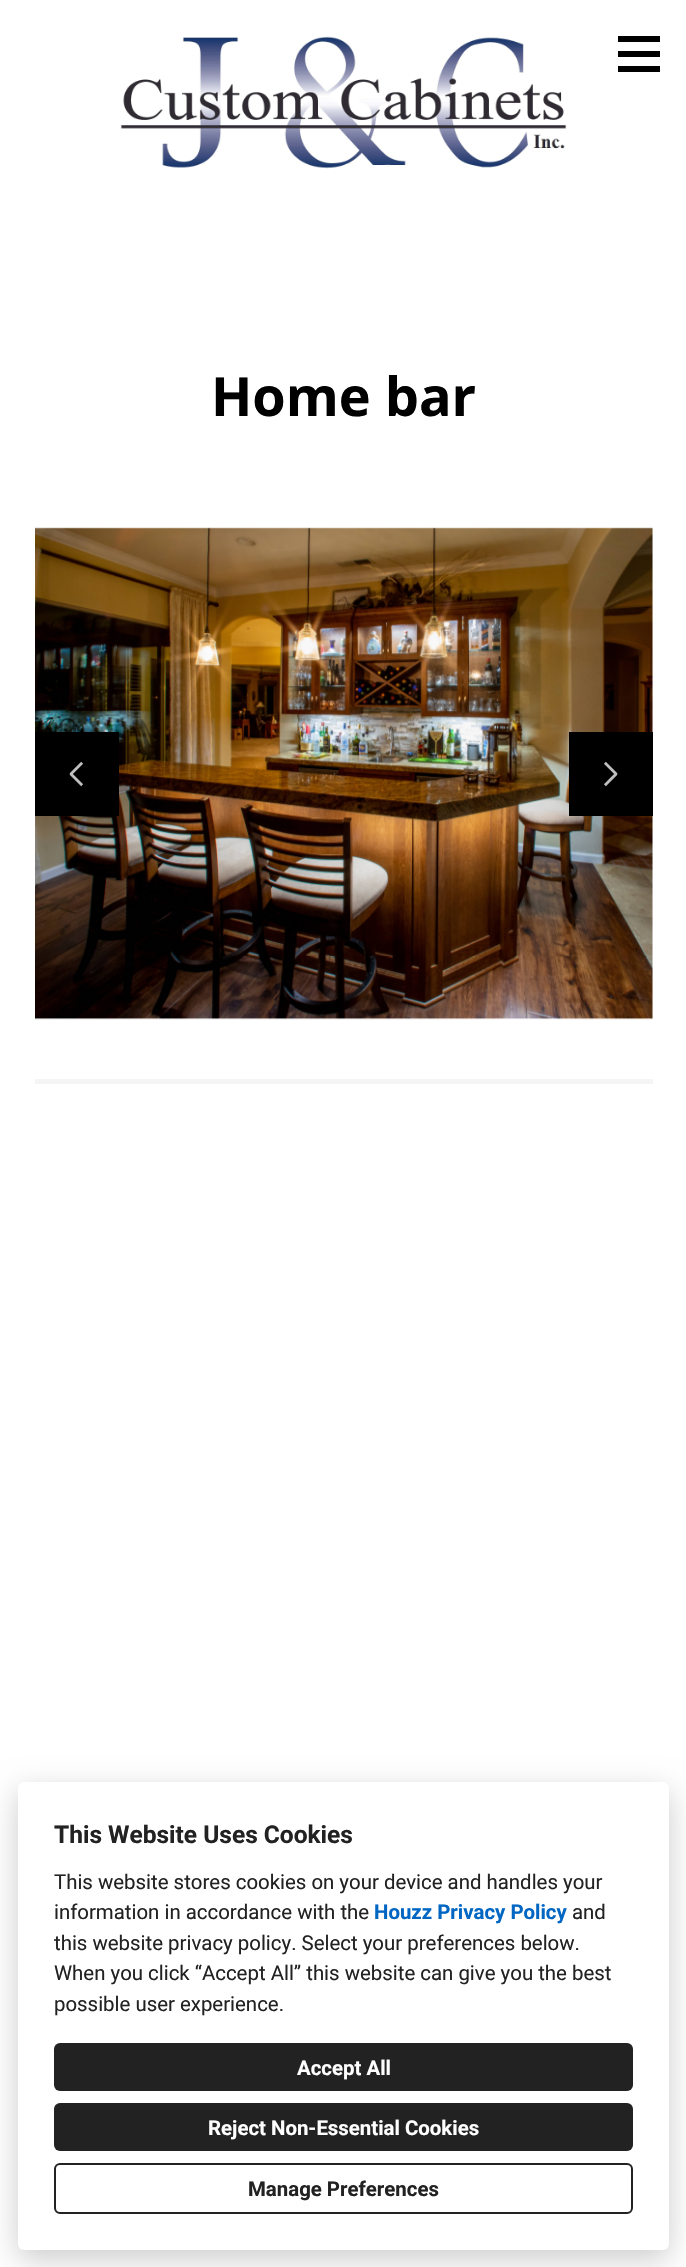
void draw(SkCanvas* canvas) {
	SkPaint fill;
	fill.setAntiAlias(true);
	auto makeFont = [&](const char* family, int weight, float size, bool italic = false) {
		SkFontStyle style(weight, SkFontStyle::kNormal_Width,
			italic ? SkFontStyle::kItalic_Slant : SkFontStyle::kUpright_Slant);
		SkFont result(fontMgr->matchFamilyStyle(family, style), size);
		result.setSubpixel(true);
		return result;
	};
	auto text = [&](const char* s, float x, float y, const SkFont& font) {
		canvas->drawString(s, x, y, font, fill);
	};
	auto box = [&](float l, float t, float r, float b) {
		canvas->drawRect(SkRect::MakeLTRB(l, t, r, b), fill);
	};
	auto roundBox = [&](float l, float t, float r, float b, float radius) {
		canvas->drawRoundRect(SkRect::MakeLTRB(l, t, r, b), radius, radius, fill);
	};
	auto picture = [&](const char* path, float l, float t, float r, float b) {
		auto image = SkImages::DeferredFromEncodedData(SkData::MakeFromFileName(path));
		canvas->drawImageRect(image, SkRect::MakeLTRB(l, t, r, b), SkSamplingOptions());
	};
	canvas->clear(0xFFFFFFFF);
	picture("image0.png", 120, 36, 567, 169);
	fill.setColor(0xFF000000);
	canvas->drawPath(SkPathBuilder().moveTo(618, 36).lineTo(618, 42).lineTo(660, 42).lineTo(660, 36).close().moveTo(660, 51).lineTo(618, 51).lineTo(618, 57).lineTo(660, 57).close().moveTo(618, 72).lineTo(660, 72).lineTo(660, 66).lineTo(618, 66).close().detach(), fill);
	picture("image1.png", 35, 527, 653, 1020);
	box(35, 732, 119, 816);
	picture("image2.png", 69, 761, 83, 787);
	box(569, 732, 653, 816);
	picture("image3.png", 604, 761, 618, 787);
	fill.setColor(0xFFF5F5F5);
	box(35, 1079, 653, 1084);
	fill.setColor(0x33000000);
	fill.setMaskFilter(SkMaskFilter::MakeBlur(kNormal_SkBlurStyle, 15));
	canvas->drawRoundRect(SkRect::MakeLTRB(18, 1791, 669, 2259), 6, 6, fill);
	fill.setMaskFilter(nullptr);
	fill.setColor(0xFFFFFFFF);
	roundBox(18, 1782, 669, 2250, 6);
	fill.setColor(0xFF222222);
	roundBox(54, 2043, 633, 2091, 6);
	roundBox(54, 2103, 633, 2151, 6);
	fill.setStyle(SkPaint::kStroke_Style);
	fill.setStrokeWidth(2);
	canvas->drawRoundRect(SkRect::MakeLTRB(55, 2164, 632, 2213), 5, 5, fill);
	auto font1 = makeFont("Open Sans", 700, 54);
	fill.setStyle(SkPaint::kFill_Style);
	fill.setColor(0xFF000000);
	text("Home bar", 211, 416, font1);
	auto font2 = makeFont("Roboto", 700, 24.5f);
	fill.setColor(0xFF222222);
	text("This Website Uses Cookies", 54, 1843, font2);
	auto font3 = makeFont("Roboto", 400, 20.4f);
	text("This website stores cookies on your device and handles your", 54, 1889, font3);
	text("information in accordance with the", 54, 1919, font3);
	auto font4 = makeFont("Roboto", 700, 20.4f);
	fill.setColor(0xFF0066C3);
	text("Houzz Privacy Policy", 374, 1919, font4);
	fill.setColor(0xFF222222);
	text("and", 572, 1919, font3);
	text("this website privacy policy. Select your preferences below.", 54, 1950, font3);
	text("When you click “Accept All” this website can give you the best", 54, 1980, font3);
	text("possible user experience.", 54, 2011, font3);
	fill.setColor(0xFFFFFFFF);
	text("Accept All", 297, 2075, font4);
	text("Reject Non-Essential Cookies", 208, 2135, font4);
	fill.setColor(0xFF222222);
	text("Manage Preferences", 248, 2196, font4);
}
